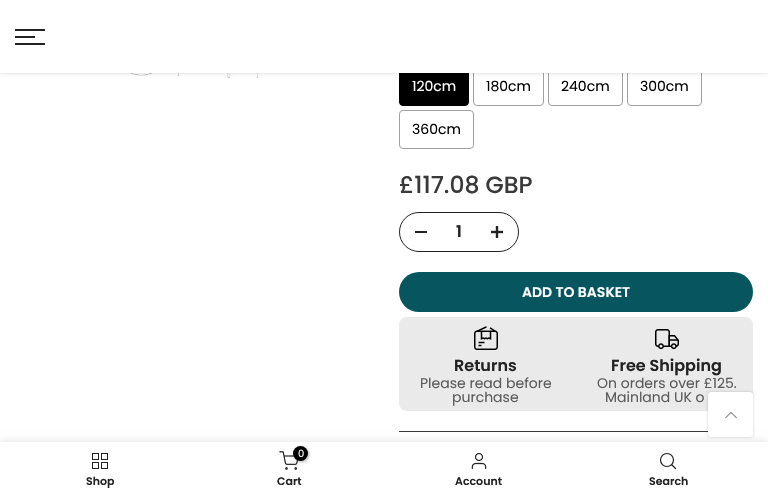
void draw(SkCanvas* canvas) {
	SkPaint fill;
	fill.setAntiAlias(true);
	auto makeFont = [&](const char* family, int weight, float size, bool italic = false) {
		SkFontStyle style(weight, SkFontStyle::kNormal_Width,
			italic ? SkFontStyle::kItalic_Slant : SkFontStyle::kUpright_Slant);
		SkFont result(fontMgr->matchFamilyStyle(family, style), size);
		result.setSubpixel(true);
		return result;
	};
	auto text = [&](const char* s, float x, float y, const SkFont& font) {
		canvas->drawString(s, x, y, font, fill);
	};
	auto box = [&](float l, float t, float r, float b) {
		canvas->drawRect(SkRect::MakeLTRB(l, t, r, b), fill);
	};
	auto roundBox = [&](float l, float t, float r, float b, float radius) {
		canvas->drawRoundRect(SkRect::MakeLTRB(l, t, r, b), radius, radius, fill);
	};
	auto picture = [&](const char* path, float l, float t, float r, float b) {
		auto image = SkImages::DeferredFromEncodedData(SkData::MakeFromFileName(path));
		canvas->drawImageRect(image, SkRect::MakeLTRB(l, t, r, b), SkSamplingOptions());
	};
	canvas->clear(0xFFFFFFFF);
	picture("image0.png", 115, 73, 183, 76);
	picture("image1.png", 212, 73, 262, 78);
	fill.setColor(0xFF000000);
	canvas->drawRoundRect(SkRect::MakeLTRB(399.5f, 67.5f, 468.5f, 105.5f), 3.5f, 3.5f, fill);
	fill.setStyle(SkPaint::kStroke_Style);
	fill.setStrokeWidth(1);
	canvas->drawRoundRect(SkRect::MakeLTRB(399.5f, 67.5f, 468.5f, 105.5f), 3.5f, 3.5f, fill);
	fill.setColor(0xFFA0A0A0);
	canvas->drawRoundRect(SkRect::MakeLTRB(473.5f, 67.5f, 543.5f, 105.5f), 3.5f, 3.5f, fill);
	canvas->drawRoundRect(SkRect::MakeLTRB(548.5f, 67.5f, 622.5f, 105.5f), 3.5f, 3.5f, fill);
	canvas->drawRoundRect(SkRect::MakeLTRB(627.5f, 67.5f, 701.5f, 105.5f), 3.5f, 3.5f, fill);
	fill.setStyle(SkPaint::kFill_Style);
	fill.setColor(0x1A000000);
	fill.setMaskFilter(SkMaskFilter::MakeBlur(kNormal_SkBlurStyle, 1.5f));
	canvas->drawRect(SkRect::MakeLTRB(0, 1, 768, 74), fill);
	fill.setMaskFilter(nullptr);
	fill.setColor(0xFFFFFFFF);
	box(0, 0, 768, 73);
	fill.setColor(0xFF222222);
	box(15, 29, 45, 31);
	box(15, 36, 35, 38);
	box(15, 43, 45, 45);
	fill.setStyle(SkPaint::kStroke_Style);
	fill.setColor(0xFFA0A0A0);
	canvas->drawRoundRect(SkRect::MakeLTRB(399.5f, 110.5f, 473.5f, 148.5f), 3.5f, 3.5f, fill);
	fill.setColor(0xFF222222);
	canvas->drawRoundRect(SkRect::MakeLTRB(399.5f, 212.5f, 518.5f, 251.5f), 19.5f, 19.5f, fill);
	fill.setStyle(SkPaint::kFill_Style);
	box(415, 231, 427, 233);
	picture("image2.png", 491, 226, 503, 238);
	fill.setColor(0xFF07565F);
	roundBox(399, 272, 753, 312, 20);
	fill.setColor(0xFFEAEAEB);
	roundBox(399, 317, 753, 411, 8);
	picture("image3.png", 474, 326, 498, 350);
	picture("image4.png", 655, 329, 679, 350);
	fill.setColor(0xFF383838);
	box(399, 431, 708, 432);
	fill.setColor(0x1F000000);
	fill.setMaskFilter(SkMaskFilter::MakeBlur(kNormal_SkBlurStyle, 4.5f));
	canvas->drawRect(SkRect::MakeLTRB(0, 442, 768, 497), fill);
	fill.setMaskFilter(nullptr);
	fill.setColor(0xFFFFFFFF);
	box(0, 442, 768, 497);
	fill.setColor(0x33000000);
	fill.setMaskFilter(SkMaskFilter::MakeBlur(kNormal_SkBlurStyle, 1.5f));
	canvas->drawRoundRect(SkRect::MakeLTRB(708, 392, 753, 437), 3, 3, fill);
	fill.setMaskFilter(nullptr);
	fill.setColor(0xFFFFFFFF);
	roundBox(708, 392, 753, 437, 3);
	picture("image5.png", 725, 411, 737, 419);
	picture("image6.png", 92, 453, 108, 469);
	picture("image7.png", 279, 451, 298, 470);
	fill.setColor(0x4D000000);
	fill.setMaskFilter(SkMaskFilter::MakeBlur(kNormal_SkBlurStyle, 1.5f));
	canvas->drawRoundRect(SkRect::MakeLTRB(294, 447, 309, 462), 7.5f, 7.5f, fill);
	fill.setMaskFilter(nullptr);
	fill.setColor(0xFF000000);
	canvas->drawCircle(300.5f, 453.5f, 7.5f, fill);
	picture("image8.png", 471, 452, 487, 470);
	fill.setStyle(SkPaint::kStroke_Style);
	fill.setStrokeWidth(1.2f);
	fill.setColor(0xFF222222);
	canvas->drawCircle(667, 460, 6.5f, fill);
	fill.setStrokeCap(SkPaint::kRound_Cap);
	fill.setStrokeJoin(SkPaint::kRound_Join);
	canvas->drawPath(SkPathBuilder().moveTo(675.5f, 468.5f).lineTo(672, 465).detach(), fill);
	auto font1 = makeFont("Poppins", 400, 14);
	fill.setStyle(SkPaint::kFill_Style);
	fill.setColor(0xFFFFFFFF);
	text("120cm", 412, 91, font1);
	fill.setColor(0xFF000000);
	text("180cm", 486, 91, font1);
	text("240cm", 561, 91, font1);
	text("300cm", 640, 91, font1);
	text("360cm", 412, 134, font1);
	auto font2 = makeFont("Poppins", 500, 23.5f);
	fill.setColor(0xFF393939);
	text("£117.08 GBP", 399, 193, font2);
	auto font3 = makeFont("Poppins", 600, 16);
	fill.setColor(0xFF222222);
	text("1", 456, 237, font3);
	auto font4 = makeFont("Poppins", 600, 14);
	fill.setColor(0xFFFFFFFF);
	text("ADD TO BASKET", 522, 297, font4);
	fill.setColor(0xFF222222);
	text("Returns", 454, 371, font3);
	fill.setColor(0xFF5B5B5B);
	text("Please read before", 420, 388, font1);
	text("purchase", 452, 402, font1);
	fill.setColor(0xFF222222);
	text("Free Shipping", 611, 371, font3);
	fill.setColor(0xFF5B5B5B);
	text("On orders over £125.", 597, 388, font1);
	text("Mainland UK o", 605, 402, font1);
	auto font5 = makeFont("Poppins", 600, 11);
	fill.setColor(0xFF222222);
	text("Shop", 86, 485, font5);
	auto font6 = makeFont("Poppins", 400, 10);
	fill.setColor(0xFFFFFFFF);
	text("0", 298, 457, font6);
	fill.setColor(0xFF222222);
	text("Cart", 277, 485, font5);
	text("Account", 455, 485, font5);
	text("Search", 649, 485, font5);
}
